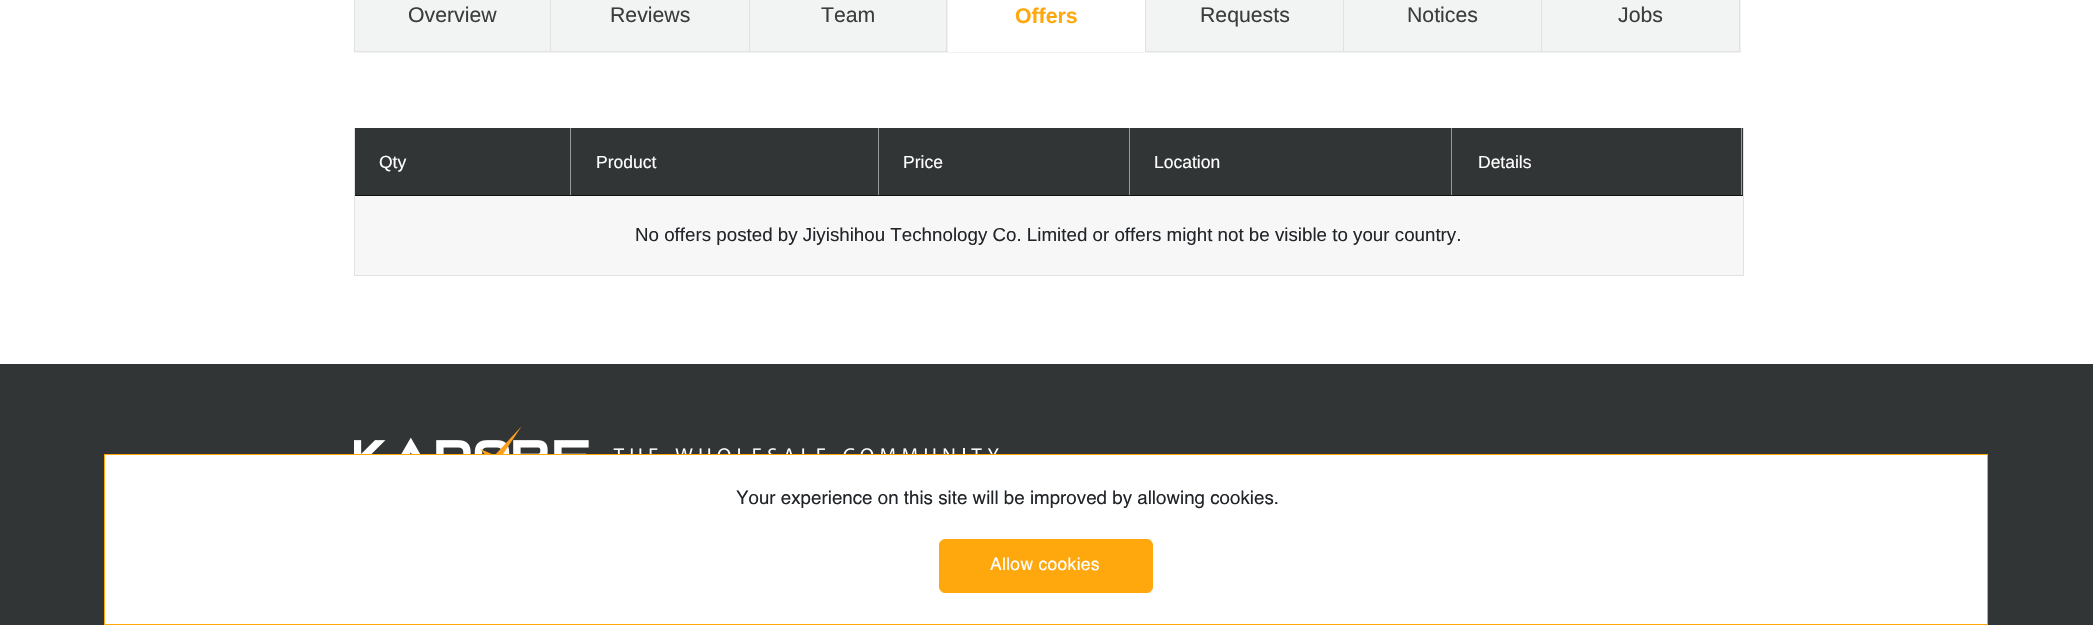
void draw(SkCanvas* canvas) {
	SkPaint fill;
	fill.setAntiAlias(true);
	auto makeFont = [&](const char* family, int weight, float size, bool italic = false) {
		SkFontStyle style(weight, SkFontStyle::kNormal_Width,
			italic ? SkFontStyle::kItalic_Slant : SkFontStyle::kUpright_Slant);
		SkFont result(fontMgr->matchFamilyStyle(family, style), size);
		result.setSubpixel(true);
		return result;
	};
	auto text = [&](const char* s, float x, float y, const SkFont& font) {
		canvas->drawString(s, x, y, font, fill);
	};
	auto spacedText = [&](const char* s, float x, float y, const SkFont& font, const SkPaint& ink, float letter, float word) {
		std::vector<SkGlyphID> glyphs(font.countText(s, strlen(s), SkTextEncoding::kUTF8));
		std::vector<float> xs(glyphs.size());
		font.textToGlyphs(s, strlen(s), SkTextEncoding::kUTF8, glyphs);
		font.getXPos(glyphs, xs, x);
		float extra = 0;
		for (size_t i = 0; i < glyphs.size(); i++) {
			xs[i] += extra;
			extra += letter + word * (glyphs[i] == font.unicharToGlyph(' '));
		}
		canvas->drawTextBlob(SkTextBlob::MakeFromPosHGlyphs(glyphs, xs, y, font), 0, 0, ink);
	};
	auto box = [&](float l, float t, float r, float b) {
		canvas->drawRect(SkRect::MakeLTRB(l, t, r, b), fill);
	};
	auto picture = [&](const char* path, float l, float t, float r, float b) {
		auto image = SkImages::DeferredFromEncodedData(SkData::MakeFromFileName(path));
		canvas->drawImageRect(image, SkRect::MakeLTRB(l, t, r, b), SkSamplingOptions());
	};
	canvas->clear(0xFF313535);
	fill.setColor(0xFFFFFFFF);
	box(0, 0, 2093, 364);
	fill.setColor(0xFFF2F4F4);
	box(354, 0, 1741, 53);
	fill.setColor(0xFFE2E2E2);
	box(354, 51, 1741, 52);
	box(550, 0, 551, 51);
	box(354, 0, 355, 51);
	box(749, 0, 750, 51);
	box(946, 0, 947, 51);
	fill.setColor(0xFFFFFFFF);
	box(948, 0, 1145, 52);
	fill.setColor(0xFFE2E2E2);
	canvas->drawPath(SkPathBuilder(SkPathFillType::kEvenOdd).moveTo(954, -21).lineTo(1140, -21).cubicTo(1143, -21, 1146, -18, 1146, -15).lineTo(1146, 51).lineTo(948, 51).lineTo(948, -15).cubicTo(948, -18, 950, -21, 954, -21).close().moveTo(954, -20).lineTo(1140, -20).cubicTo(1143, -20, 1145, -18, 1145, -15).lineTo(1145, 51).lineTo(948, 51).lineTo(948, -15).cubicTo(948, -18, 950, -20, 954, -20).close().detach(), fill);
	box(1343, 0, 1344, 51);
	box(1541, 0, 1542, 51);
	box(1739, 0, 1740, 51);
	box(1743, 128, 1744, 276);
	box(354, 275, 1744, 276);
	box(354, 128, 355, 276);
	fill.setColor(0xFF313535);
	box(355, 128, 570, 195);
	fill.setColor(0xFF999999);
	box(570, 128, 571, 196);
	fill.setColor(0xFF111111);
	box(355, 195, 571, 196);
	fill.setColor(0xFF313535);
	box(571, 128, 878, 195);
	fill.setColor(0xFF999999);
	box(878, 128, 879, 196);
	fill.setColor(0xFF111111);
	box(571, 195, 879, 196);
	fill.setColor(0xFF313535);
	box(879, 128, 1129, 195);
	fill.setColor(0xFF999999);
	box(1129, 128, 1130, 196);
	fill.setColor(0xFF111111);
	box(879, 195, 1130, 196);
	fill.setColor(0xFF313535);
	box(1130, 128, 1743, 195);
	fill.setColor(0xFF999999);
	box(1451, 128, 1452, 196);
	fill.setColor(0xFF111111);
	box(1130, 195, 1453, 196);
	fill.setColor(0xFF999999);
	box(1741, 128, 1742, 196);
	fill.setColor(0xFF111111);
	box(1453, 195, 1743, 196);
	fill.setColor(0xFFF7F7F7);
	box(355, 196, 1743, 275);
	picture("image0.png", 354, 426, 999, 454);
	fill.setColor(0xFFFFFFFF);
	canvas->drawRect(SkRect::MakeLTRB(104.5f, 454.5f, 1987.5f, 624.5f), fill);
	fill.setStyle(SkPaint::kStroke_Style);
	fill.setStrokeWidth(1);
	fill.setColor(0xFFFFA80D);
	canvas->drawRect(SkRect::MakeLTRB(104.5f, 454.5f, 1987.5f, 624.5f), fill);
	fill.setStyle(SkPaint::kFill_Style);
	canvas->drawRoundRect(SkRect::MakeLTRB(939.5f, 539.5f, 1152.5f, 592.5f), 5.5f, 5.5f, fill);
	fill.setStyle(SkPaint::kStroke_Style);
	canvas->drawRoundRect(SkRect::MakeLTRB(939.5f, 539.5f, 1152.5f, 592.5f), 5.5f, 5.5f, fill);
	auto font1 = makeFont("Liberation Sans", 400, 21.25f);
	fill.setStyle(SkPaint::kFill_Style);
	fill.setColor(0xFF3A3D3D);
	text("Overview", 408, 22, font1);
	text("Reviews", 610, 22, font1);
	text("Team", 821, 22, font1);
	auto font2 = makeFont("Liberation Sans", 700, 21.25f);
	fill.setColor(0xFFFFA80D);
	text("Offers", 1015, 23, font2);
	fill.setColor(0xFF3A3D3D);
	text("Requests", 1200, 22, font1);
	text("Notices", 1407, 22, font1);
	text("Jobs", 1618, 22, font1);
	auto font3 = makeFont("Liberation Sans", 400, 17.5f);
	fill.setColor(0xFFFFFFFF);
	text("Qty", 379, 168, font3);
	text("Product", 596, 168, font3);
	text("Price", 903, 168, font3);
	text("Location", 1154, 168, font3);
	text("Details", 1478, 168, font3);
	auto font4 = makeFont("Liberation Sans", 400, 18.75f);
	fill.setColor(0xFF212529);
	text("No offers posted by Jiyishihou Technology Co. Limited or offers might not be visible to your country.", 635, 241, font4);
	auto font5 = makeFont("Helvetica", 400, 18.75f);
	text("Your experience on this site will be improved by allowing cookies.", 736, 504, font5);
	auto font6 = makeFont("Helvetica", 400, 17.5f);
	fill.setColor(0xFFFFFFFF);
	spacedText("Allow cookies", 990, 570, font6, fill, 0.3f, 0);
}
